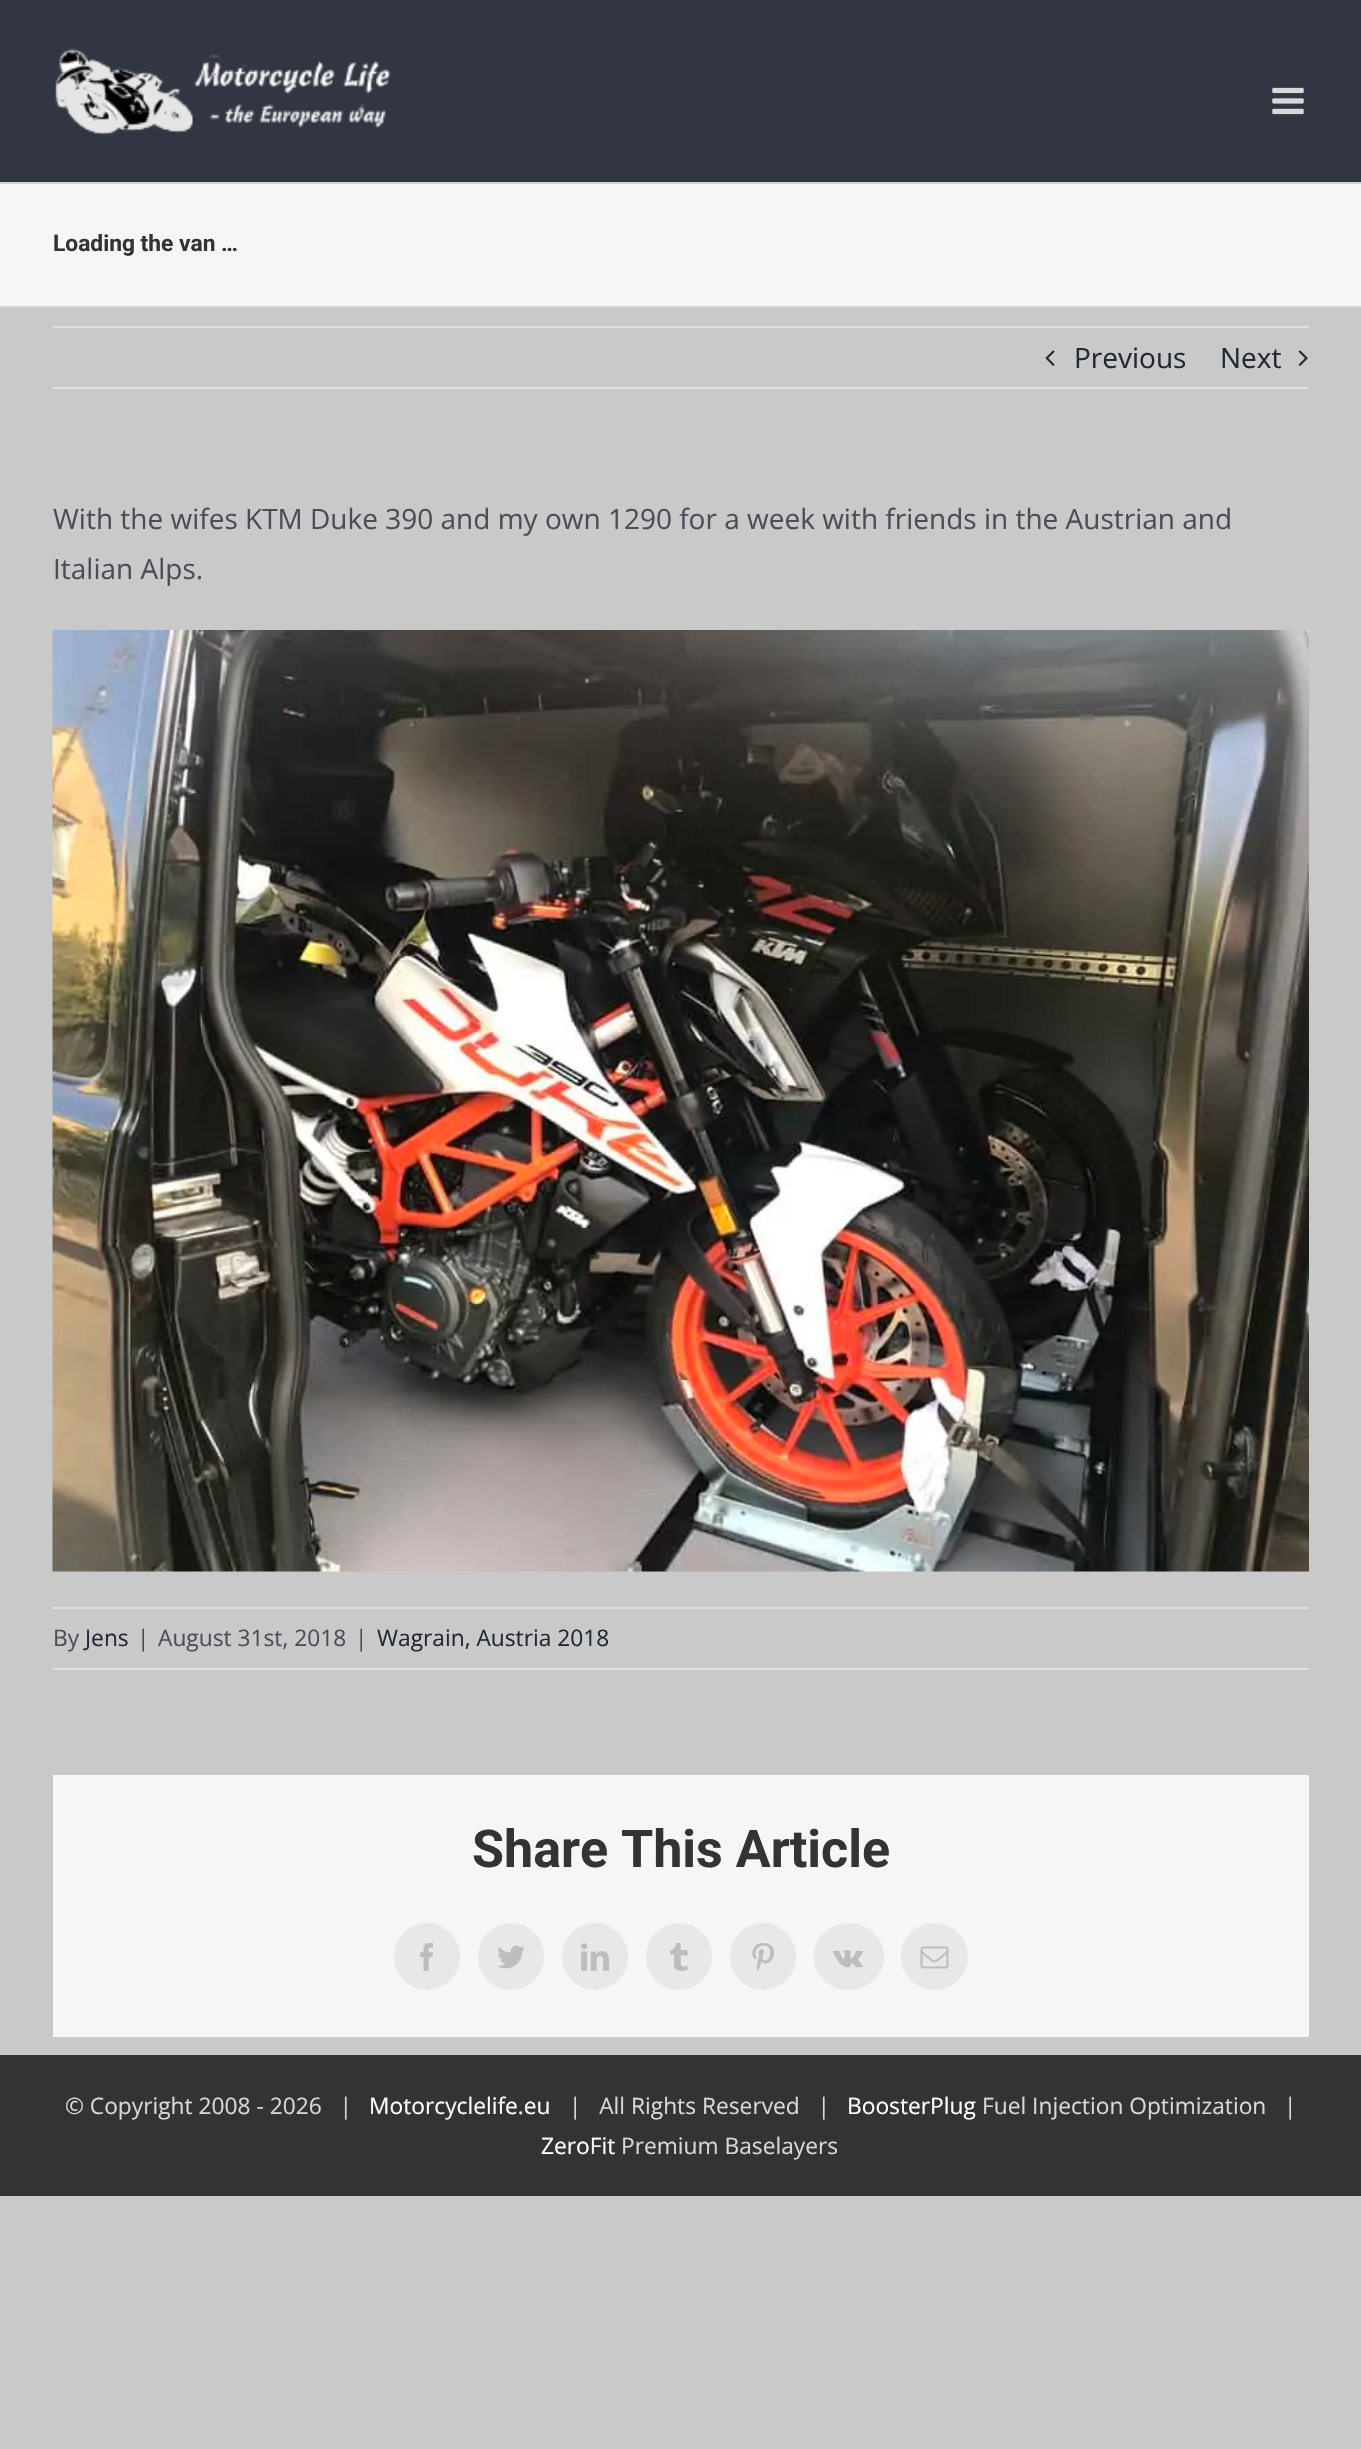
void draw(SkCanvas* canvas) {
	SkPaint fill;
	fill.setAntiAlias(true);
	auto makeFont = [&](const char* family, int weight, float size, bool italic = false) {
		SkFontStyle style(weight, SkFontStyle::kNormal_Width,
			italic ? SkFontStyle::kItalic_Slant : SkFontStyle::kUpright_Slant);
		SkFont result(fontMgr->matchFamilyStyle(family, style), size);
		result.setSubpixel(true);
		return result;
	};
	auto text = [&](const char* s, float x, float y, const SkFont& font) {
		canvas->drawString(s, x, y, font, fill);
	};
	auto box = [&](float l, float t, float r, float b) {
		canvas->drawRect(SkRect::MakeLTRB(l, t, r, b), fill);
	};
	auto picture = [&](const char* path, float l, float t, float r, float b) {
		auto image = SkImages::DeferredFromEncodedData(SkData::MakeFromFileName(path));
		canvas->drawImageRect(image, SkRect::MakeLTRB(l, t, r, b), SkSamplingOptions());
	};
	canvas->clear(0xFFC9C9C9);
	fill.setColor(0xFF323643);
	box(0, 0, 1361, 182);
	picture("image0.png", 55, 48, 391, 135);
	picture("image1.png", 1272, 87, 1304, 115);
	fill.setColor(0xFFF6F6F6);
	box(0, 184, 1361, 306);
	fill.setColor(0xFFD2D3D4);
	box(0, 182, 1361, 184);
	box(0, 306, 1361, 308);
	fill.setColor(0xFFE0DEDE);
	box(53, 326, 1309, 328);
	box(53, 387, 1309, 389);
	picture("image2.png", 1045, 350, 1055, 366);
	picture("image3.png", 1298, 350, 1308, 366);
	picture("image4.png", 52, 630, 1309, 1572);
	box(53, 1607, 1309, 1609);
	box(53, 1668, 1309, 1670);
	fill.setColor(0xFFF6F6F6);
	box(53, 1775, 1309, 2037);
	fill.setColor(0xFFE8E8E8);
	canvas->drawRoundRect(SkRect::MakeLTRB(395, 1924, 459, 1989), 32, 32, fill);
	fill.setStyle(SkPaint::kStroke_Style);
	fill.setStrokeWidth(2);
	canvas->drawRoundRect(SkRect::MakeLTRB(395, 1924, 459, 1989), 32, 32, fill);
	picture("image5.png", 420, 1943, 433, 1971);
	fill.setStyle(SkPaint::kFill_Style);
	canvas->drawRoundRect(SkRect::MakeLTRB(479, 1924, 543, 1989), 32, 32, fill);
	fill.setStyle(SkPaint::kStroke_Style);
	canvas->drawRoundRect(SkRect::MakeLTRB(479, 1924, 543, 1989), 32, 32, fill);
	picture("image6.png", 497, 1945, 525, 1969);
	fill.setStyle(SkPaint::kFill_Style);
	canvas->drawRoundRect(SkRect::MakeLTRB(563, 1924, 627, 1989), 32, 32, fill);
	fill.setStyle(SkPaint::kStroke_Style);
	canvas->drawRoundRect(SkRect::MakeLTRB(563, 1924, 627, 1989), 32, 32, fill);
	picture("image7.png", 581, 1943, 609, 1971);
	fill.setStyle(SkPaint::kFill_Style);
	canvas->drawRoundRect(SkRect::MakeLTRB(647, 1924, 711, 1989), 32, 32, fill);
	fill.setStyle(SkPaint::kStroke_Style);
	canvas->drawRoundRect(SkRect::MakeLTRB(647, 1924, 711, 1989), 32, 32, fill);
	picture("image8.png", 670, 1943, 688, 1971);
	fill.setStyle(SkPaint::kFill_Style);
	canvas->drawRoundRect(SkRect::MakeLTRB(731, 1924, 795, 1989), 32, 32, fill);
	fill.setStyle(SkPaint::kStroke_Style);
	canvas->drawRoundRect(SkRect::MakeLTRB(731, 1924, 795, 1989), 32, 32, fill);
	picture("image9.png", 752, 1943, 774, 1971);
	fill.setStyle(SkPaint::kFill_Style);
	canvas->drawOval(SkRect::MakeLTRB(814, 1923.5f, 884, 1989.5f), fill);
	fill.setStyle(SkPaint::kStroke_Style);
	fill.setStrokeWidth(1.8f);
	canvas->drawPath(SkPathBuilder().moveTo(849, 1924).cubicTo(867.5f, 1924, 883, 1938.5f, 883, 1956.5f).cubicTo(883, 1974.5f, 867.5f, 1989, 849, 1989).cubicTo(830, 1989, 814.5f, 1974.5f, 814.5f, 1956.5f).cubicTo(814.5f, 1938.5f, 830, 1924, 849, 1924).close().detach(), fill);
	picture("image10.png", 833, 1950, 863, 1968);
	fill.setStyle(SkPaint::kFill_Style);
	canvas->drawCircle(934.5f, 1956.5f, 32.5f, fill);
	fill.setStyle(SkPaint::kStroke_Style);
	fill.setStrokeWidth(2);
	canvas->drawCircle(934.5f, 1956.5f, 32.5f, fill);
	picture("image11.png", 920, 1946, 949, 1969);
	fill.setStyle(SkPaint::kFill_Style);
	fill.setColor(0xFF333333);
	box(0, 2055, 1361, 2196);
	auto font1 = makeFont("Roboto", 700, 22.75f);
	text("Loading the van …", 53, 251, font1);
	auto font2 = makeFont("Open Sans", 400, 28);
	fill.setColor(0xFF212934);
	text("Previous", 1074, 368, font2);
	text("Next", 1220, 368, font2);
	fill.setColor(0xFF4A4E57);
	text("With the wifes KTM Duke 390 and my own 1290 for a week with friends in the Austrian and", 53, 529, font2);
	text("Italian Alps.", 53, 579, font2);
	auto font3 = makeFont("Open Sans", 400, 22.75f);
	text("By", 53, 1646, font3);
	fill.setColor(0xFF212934);
	text("Jens", 85, 1646, font3);
	fill.setColor(0xFF4A4E57);
	text("|", 137, 1646, font3);
	text("August 31st, 2018", 158, 1646, font3);
	text("|", 355, 1646, font3);
	fill.setColor(0xFF212934);
	text("Wagrain, Austria 2018", 377, 1646, font3);
	auto font4 = makeFont("Roboto", 700, 52);
	fill.setColor(0xFF333333);
	text("Share This Article", 472, 1867, font4);
	fill.setColor(0xFFD8D8D8);
	text("© Copyright 2008 - 2026   |", 65, 2114, font3);
	fill.setColor(0xFFFFFFFF);
	text("Motorcyclelife.eu", 369, 2114, font3);
	fill.setColor(0xFFD8D8D8);
	text("|   All Rights Reserved   |", 569, 2114, font3);
	fill.setColor(0xFFFFFFFF);
	text("BoosterPlug", 847, 2114, font3);
	fill.setColor(0xFFD8D8D8);
	text("Fuel Injection Optimization   |", 982, 2114, font3);
	fill.setColor(0xFFFFFFFF);
	text("ZeroFit", 541, 2154, font3);
	fill.setColor(0xFFD8D8D8);
	text("Premium Baselayers", 621, 2154, font3);
}
